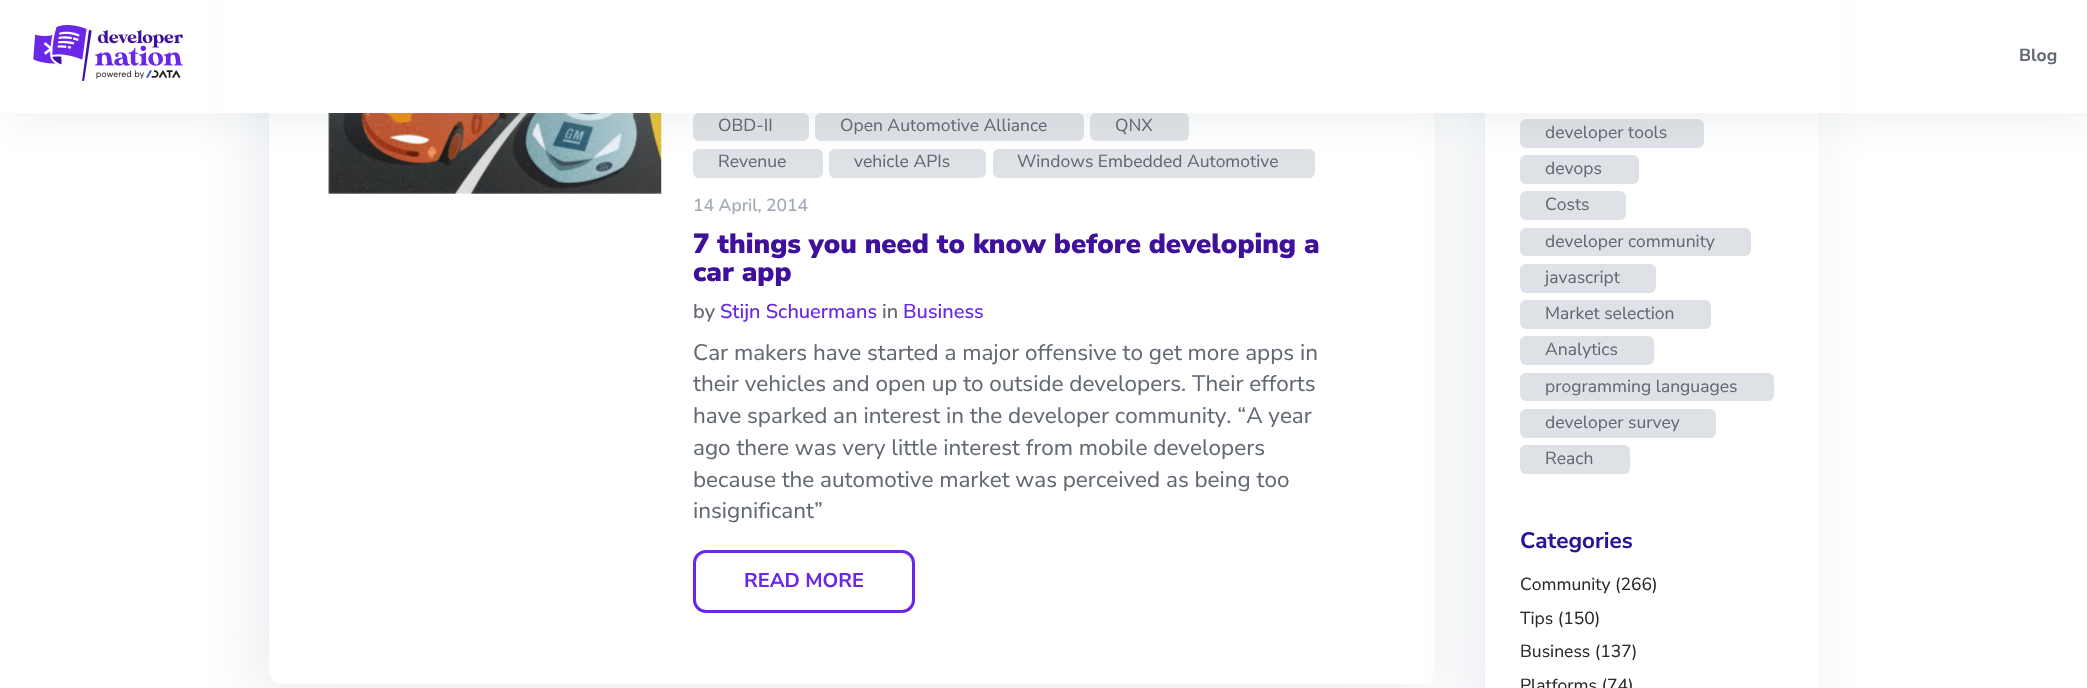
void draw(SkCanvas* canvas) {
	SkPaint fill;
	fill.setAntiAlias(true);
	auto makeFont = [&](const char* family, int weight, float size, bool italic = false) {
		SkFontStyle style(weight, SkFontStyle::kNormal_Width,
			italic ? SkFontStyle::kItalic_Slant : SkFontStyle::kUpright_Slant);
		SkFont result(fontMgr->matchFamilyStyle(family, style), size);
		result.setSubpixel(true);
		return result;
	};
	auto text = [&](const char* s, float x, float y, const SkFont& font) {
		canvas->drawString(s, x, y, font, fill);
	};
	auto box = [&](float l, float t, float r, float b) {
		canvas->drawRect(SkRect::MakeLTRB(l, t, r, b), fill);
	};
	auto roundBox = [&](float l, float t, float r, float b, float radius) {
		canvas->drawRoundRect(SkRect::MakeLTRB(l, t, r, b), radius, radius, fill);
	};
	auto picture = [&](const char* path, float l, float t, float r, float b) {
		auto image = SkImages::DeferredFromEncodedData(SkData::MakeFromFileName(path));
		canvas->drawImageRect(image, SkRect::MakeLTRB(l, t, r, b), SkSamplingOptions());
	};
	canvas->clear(0xFFFFFFFF);
	fill.setColor(0x54BCC6D2);
	fill.setMaskFilter(SkMaskFilter::MakeBlur(kNormal_SkBlurStyle, 31));
	canvas->drawRoundRect(SkRect::MakeLTRB(256, -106, 1423, 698), 13, 13, fill);
	fill.setMaskFilter(nullptr);
	fill.setColor(0xFFFFFFFF);
	roundBox(269, -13, 1435, 684, 13);
	fill.setColor(0x54BCC6D2);
	fill.setMaskFilter(SkMaskFilter::MakeBlur(kNormal_SkBlurStyle, 31));
	canvas->drawRoundRect(SkRect::MakeLTRB(1473, -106, 1806, 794), 13, 13, fill);
	fill.setMaskFilter(nullptr);
	fill.setColor(0xFFFFFFFF);
	box(219, 0, 1843, 113);
	picture("image1.png", 328, 113, 662, 194);
	fill.setColor(0xFFDEE1E5);
	roundBox(693, 113, 809, 141, 6);
	roundBox(815, 113, 1084, 141, 6);
	roundBox(1090, 113, 1189, 141, 6);
	roundBox(693, 149, 823, 178, 6);
	roundBox(829, 149, 986, 178, 6);
	roundBox(993, 149, 1315, 178, 6);
	fill.setColor(0xFFFFFFFF);
	box(1485, 113, 1819, 688);
	fill.setColor(0xFFDEE1E5);
	roundBox(1520, 119, 1704, 148, 6);
	roundBox(1520, 155, 1639, 184, 6);
	canvas->save();
	canvas->clipPath(SkPathBuilder(SkPathFillType::kEvenOdd).moveTo(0, 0).lineTo(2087, 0).lineTo(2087, 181).lineTo(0, 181).close().moveTo(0, 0).lineTo(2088, 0).lineTo(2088, 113).lineTo(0, 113).close().detach(), true);
	fill.setColor(0x2B9AAAB0);
	fill.setMaskFilter(SkMaskFilter::MakeBlur(kNormal_SkBlurStyle, 20));
	canvas->drawRect(SkRect::MakeLTRB(8, 8, 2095, 120), fill);
	fill.setMaskFilter(nullptr);
	canvas->restore();
	picture("image0.png", 33, 25, 183, 81);
	fill.setStyle(SkPaint::kStroke_Style);
	fill.setStrokeWidth(3);
	fill.setColor(0xFF6A27E8);
	canvas->drawRoundRect(SkRect::MakeLTRB(694.5f, 551.5f, 913.5f, 611.5f), 11.5f, 11.5f, fill);
	fill.setStyle(SkPaint::kFill_Style);
	fill.setColor(0xFFDEE1E5);
	roundBox(1520, 191, 1626, 220, 6);
	roundBox(1520, 228, 1751, 256, 6);
	roundBox(1520, 264, 1656, 293, 6);
	roundBox(1520, 300, 1711, 329, 6);
	roundBox(1520, 336, 1654, 365, 6);
	roundBox(1520, 373, 1774, 401, 6);
	roundBox(1520, 409, 1716, 438, 6);
	roundBox(1520, 445, 1630, 474, 6);
	auto font1 = makeFont("Nunito Sans", 700, 17.5f);
	fill.setColor(0xFF626972);
	text("Blog", 2019, 61, font1);
	auto font2 = makeFont("Nunito Sans", 400, 17.5f);
	text("OBD-II", 718, 131, font2);
	text("Open Automotive Alliance", 840, 131, font2);
	text("QNX", 1115, 131, font2);
	text("Revenue", 718, 167, font2);
	text("vehicle APIs", 854, 167, font2);
	text("Windows Embedded Automotive", 1017, 167, font2);
	auto font3 = makeFont("Nunito Sans", 500, 17.5f);
	fill.setColor(0xFFA2AAB5);
	text("14 April, 2014", 693, 211, font3);
	auto font4 = makeFont("Nunito Sans", 900, 27.5f);
	fill.setColor(0xFF3F119B);
	text("7 things you need to know before developing a", 693, 253, font4);
	text("car app", 693, 281, font4);
	auto font5 = makeFont("Nunito Sans", 500, 20);
	fill.setColor(0xFF626972);
	text("by", 693, 318, font5);
	fill.setColor(0xFF6A27E8);
	text("Stijn Schuermans", 720, 318, font5);
	fill.setColor(0xFF626972);
	text("in", 882, 318, font5);
	fill.setColor(0xFF6A27E8);
	text("Business", 903, 318, font5);
	auto font6 = makeFont("Nunito Sans", 400, 22.5f);
	fill.setColor(0xFF626972);
	text("Car makers have started a major offensive to get more apps in", 693, 360, font6);
	text("their vehicles and open up to outside developers. Their efforts", 693, 391, font6);
	text("have sparked an interest in the developer community. “A year", 693, 423, font6);
	text("ago there was very little interest from mobile developers", 693, 455, font6);
	text("because the automotive market was perceived as being too", 693, 487, font6);
	text("insignificant”", 693, 518, font6);
	auto font7 = makeFont("Nunito Sans", 700, 20);
	fill.setColor(0xFF6A27E8);
	text("READ MORE", 744, 587, font7);
	fill.setColor(0xFF626972);
	text("developer tools", 1545, 138, font2);
	text("devops", 1545, 174, font2);
	text("Costs", 1545, 210, font2);
	text("developer community", 1545, 247, font2);
	text("javascript", 1545, 283, font2);
	text("Market selection", 1545, 319, font2);
	text("Analytics", 1545, 355, font2);
	text("programming languages", 1545, 392, font2);
	text("developer survey", 1545, 428, font2);
	text("Reach", 1545, 464, font2);
	auto font8 = makeFont("Nunito Sans", 700, 22.5f);
	fill.setColor(0xFF2A149A);
	text("Categories", 1520, 548, font8);
	fill.setColor(0xFF2B2A29);
	text("Community (266)", 1520, 590, font2);
	text("Tips (150)", 1520, 624, font2);
	text("Business (137)", 1520, 657, font2);
	text("Platforms (74)", 1520, 691, font2);
}
